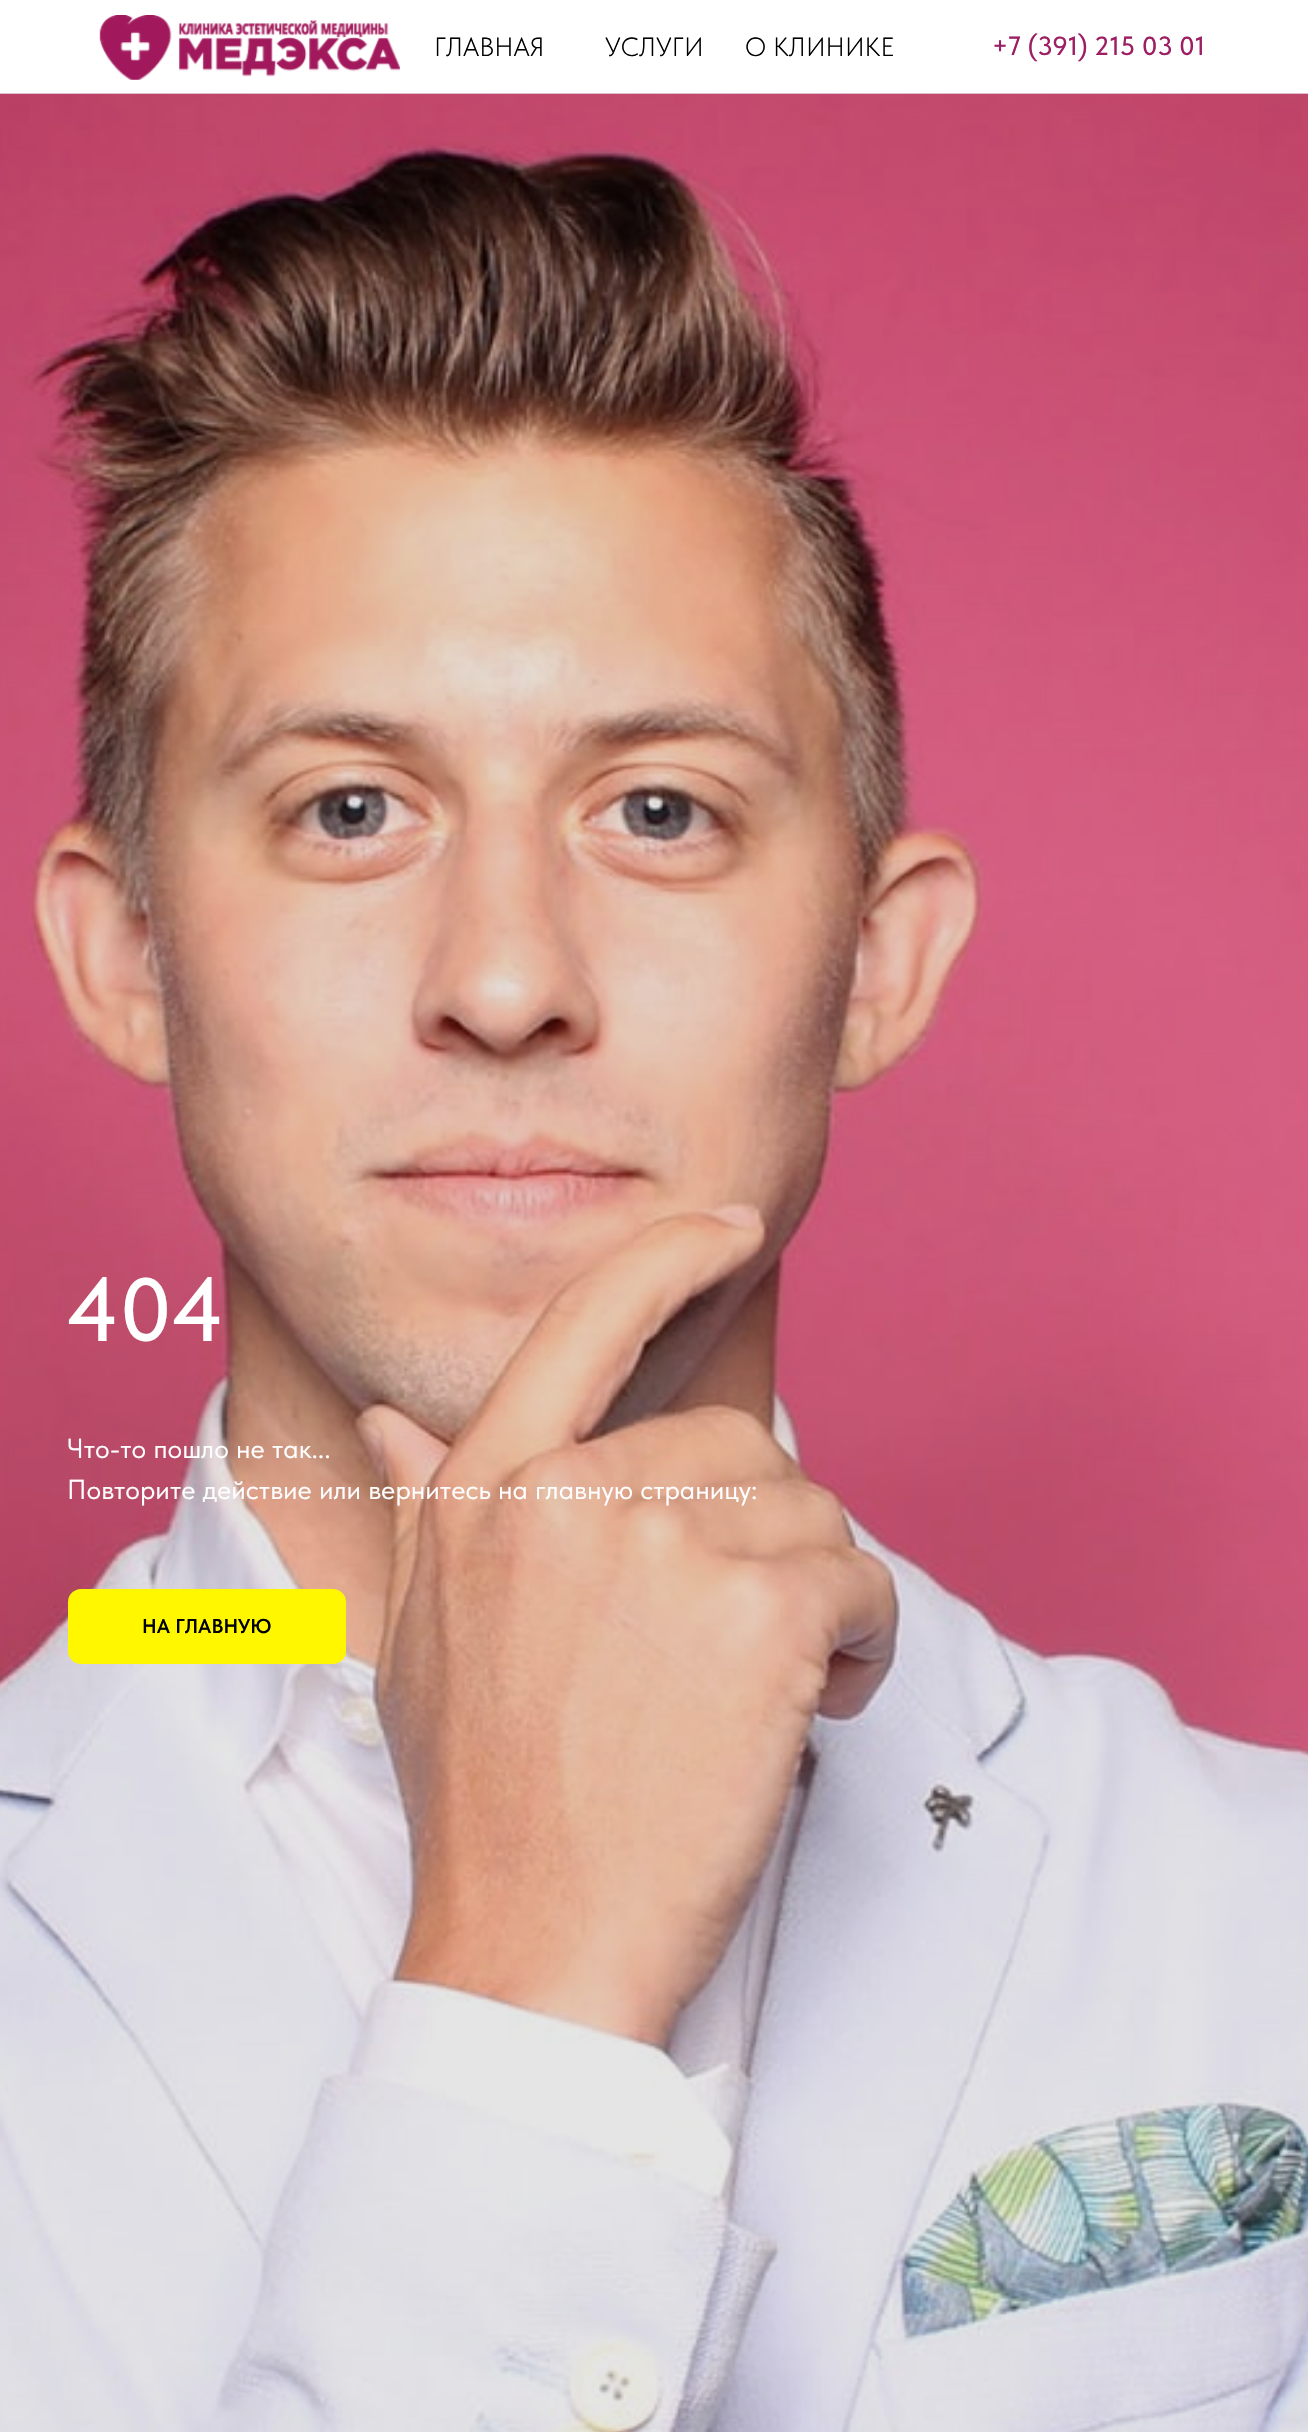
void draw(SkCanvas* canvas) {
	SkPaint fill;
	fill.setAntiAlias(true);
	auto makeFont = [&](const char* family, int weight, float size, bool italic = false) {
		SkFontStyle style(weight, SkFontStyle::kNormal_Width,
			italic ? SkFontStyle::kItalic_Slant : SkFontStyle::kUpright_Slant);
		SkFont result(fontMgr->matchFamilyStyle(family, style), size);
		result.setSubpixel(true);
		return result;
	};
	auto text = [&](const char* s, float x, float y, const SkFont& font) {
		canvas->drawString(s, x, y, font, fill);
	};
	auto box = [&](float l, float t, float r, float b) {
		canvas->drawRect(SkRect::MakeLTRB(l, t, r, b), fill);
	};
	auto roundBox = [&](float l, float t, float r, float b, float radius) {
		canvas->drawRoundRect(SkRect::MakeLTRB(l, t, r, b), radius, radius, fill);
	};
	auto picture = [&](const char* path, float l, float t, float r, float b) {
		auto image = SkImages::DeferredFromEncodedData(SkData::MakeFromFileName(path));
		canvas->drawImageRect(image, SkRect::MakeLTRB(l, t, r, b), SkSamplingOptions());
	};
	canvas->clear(0xFFFFFFFF);
	picture("image0.png", 99, 15, 400, 80);
	fill.setColor(0xFFE2BCD0);
	box(0, 93, 1308, 94);
	picture("image1.png", 0, 94, 1308, 2432);
	fill.setColor(0xFFFFF700);
	roundBox(68, 1589, 346, 1664, 13);
	auto font1 = makeFont("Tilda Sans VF", 300, 26.25f);
	fill.setColor(0xFF000000);
	text("ГЛАВНАЯ", 434, 56, font1);
	text("УСЛУГИ", 605, 56, font1);
	text("О КЛИНИКЕ", 745, 56, font1);
	auto font2 = makeFont("Tilda Sans VF", 500, 26.25f);
	fill.setColor(0xFF9D1F63);
	text("+7 (391) 215 03 01", 992, 55, font2);
	auto font3 = makeFont("Tilda Sans VF", 500, 90);
	fill.setColor(0xFFFFFFFF);
	text("404", 67, 1341, font3);
	auto font4 = makeFont("Tilda Sans VF", 400, 27.5f);
	text("Что-то пошло не так...", 67, 1458, font4);
	text("Повторите действие или вернитесь на главную страницу:", 67, 1499, font4);
	auto font5 = makeFont("Tilda Sans VF", 600, 20);
	fill.setColor(0xFF000000);
	text("НА ГЛАВНУЮ", 142, 1633, font5);
}
